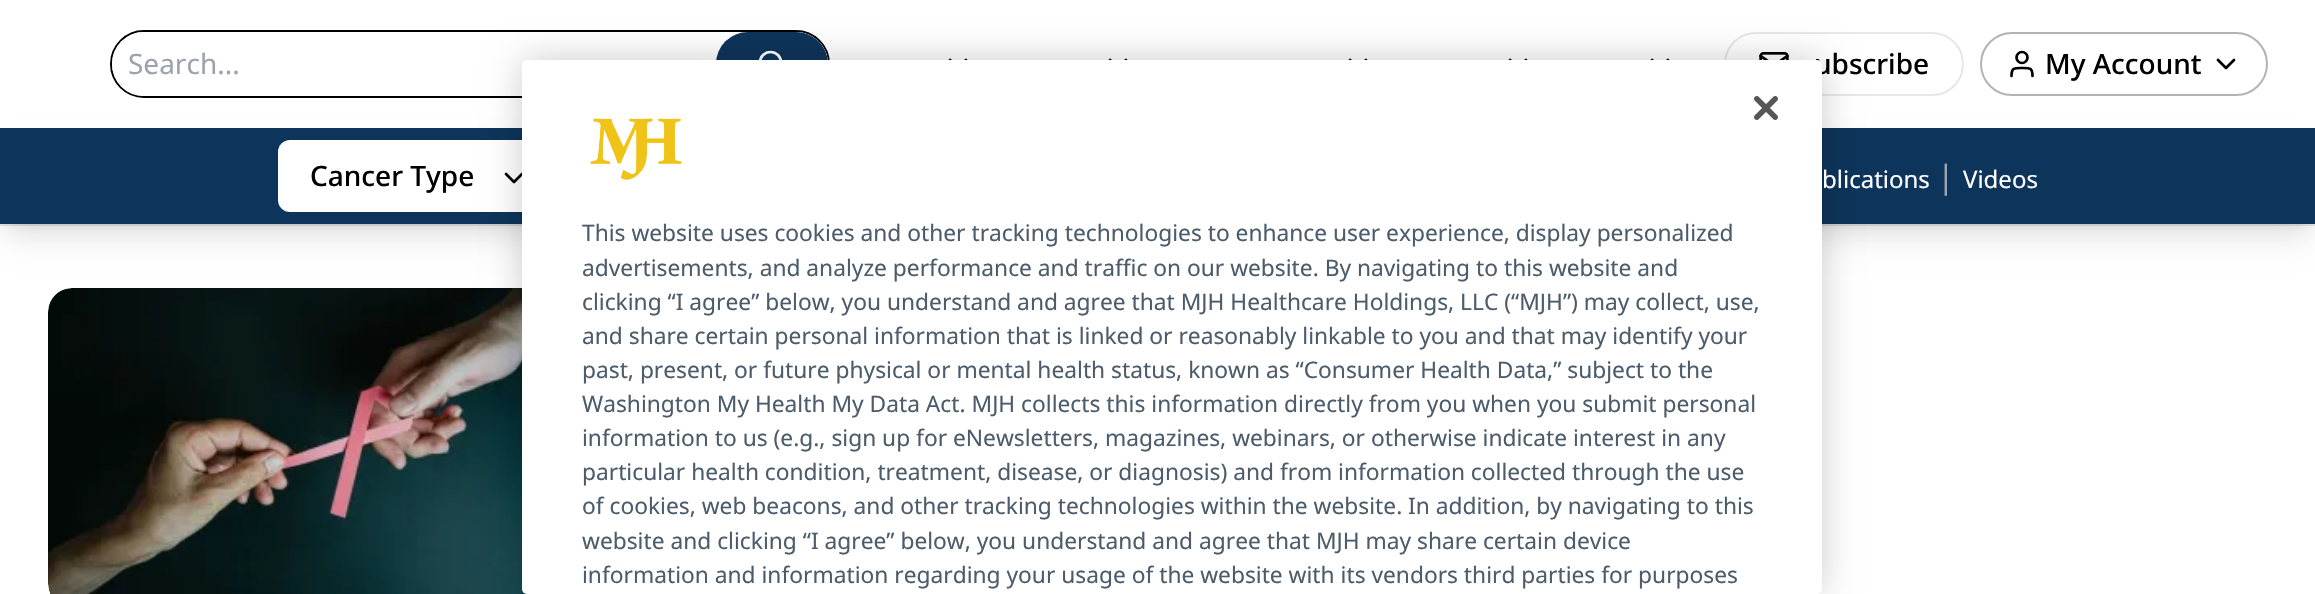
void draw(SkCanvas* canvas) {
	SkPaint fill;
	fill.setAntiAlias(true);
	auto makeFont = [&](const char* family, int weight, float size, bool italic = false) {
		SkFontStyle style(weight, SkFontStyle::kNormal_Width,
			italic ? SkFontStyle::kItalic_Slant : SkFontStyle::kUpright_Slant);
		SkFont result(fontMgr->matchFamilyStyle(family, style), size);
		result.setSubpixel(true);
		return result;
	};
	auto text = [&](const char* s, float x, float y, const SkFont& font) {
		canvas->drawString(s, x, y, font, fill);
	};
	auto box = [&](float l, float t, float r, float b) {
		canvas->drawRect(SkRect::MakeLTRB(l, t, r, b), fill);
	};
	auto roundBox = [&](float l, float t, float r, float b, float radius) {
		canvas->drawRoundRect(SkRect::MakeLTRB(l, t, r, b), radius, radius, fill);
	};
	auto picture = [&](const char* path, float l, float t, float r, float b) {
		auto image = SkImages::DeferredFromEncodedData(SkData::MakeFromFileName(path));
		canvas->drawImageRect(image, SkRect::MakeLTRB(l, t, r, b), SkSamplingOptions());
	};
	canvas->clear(0xFFFFFFFF);
	fill.setColor(0xFFE5E7EB);
	box(0, 224, 2315, 226);
	fill.setStyle(SkPaint::kStroke_Style);
	fill.setStrokeWidth(2);
	fill.setColor(0xFF000000);
	canvas->drawRoundRect(SkRect::MakeLTRB(111, 31, 829, 97), 33, 33, fill);
	fill.setStyle(SkPaint::kFill_Style);
	fill.setColor(0xFFFFFFFF);
	roundBox(112, 32, 828, 96, 32);
	fill.setColor(0xFF0D345A);
	roundBox(716, 32, 828, 96, 32);
	fill.setStyle(SkPaint::kStroke_Style);
	fill.setStrokeWidth(2.7f);
	fill.setColor(0xFFFFFFFF);
	canvas->drawCircle(770.5f, 62.5f, 10.5f, fill);
	fill.setStrokeCap(SkPaint::kRound_Cap);
	fill.setStrokeJoin(SkPaint::kRound_Join);
	fill.setColor(0xFF000000);
	canvas->drawPath(SkPathBuilder().moveTo(950, 60).lineTo(958, 68).lineTo(966, 60).detach(), fill);
	canvas->drawPath(SkPathBuilder().moveTo(1110, 60).lineTo(1118, 68).lineTo(1126, 60).detach(), fill);
	canvas->drawPath(SkPathBuilder().moveTo(1350, 60).lineTo(1358, 68).lineTo(1366, 60).detach(), fill);
	canvas->drawPath(SkPathBuilder().moveTo(1510, 60).lineTo(1518, 68).lineTo(1526, 60).detach(), fill);
	canvas->drawPath(SkPathBuilder().moveTo(1652, 60).lineTo(1660, 68).lineTo(1668, 60).detach(), fill);
	fill.setStrokeWidth(2);
	fill.setStrokeCap(SkPaint::kButt_Cap);
	fill.setStrokeJoin(SkPaint::kMiter_Join);
	fill.setColor(0xFFE5E7EB);
	canvas->drawRoundRect(SkRect::MakeLTRB(1725, 33, 1963, 95), 31, 31, fill);
	picture("image0.png", 1759, 52, 1789, 60);
	fill.setColor(0xFFB3B3B3);
	canvas->drawRoundRect(SkRect::MakeLTRB(1981, 33, 2267, 95), 31, 31, fill);
	fill.setStrokeWidth(2.7f);
	fill.setStrokeCap(SkPaint::kRound_Cap);
	fill.setStrokeJoin(SkPaint::kRound_Join);
	fill.setColor(0xFF000000);
	canvas->drawPath(SkPathBuilder().moveTo(2032.5f, 76).cubicTo(2032.5f, 67.5f, 2029.5f, 68, 2022, 68).cubicTo(2014.5f, 68, 2011.5f, 67.5f, 2011.5f, 76).detach(), fill);
	fill.setStrokeCap(SkPaint::kButt_Cap);
	fill.setStrokeJoin(SkPaint::kMiter_Join);
	canvas->drawCircle(2022, 57.5f, 5.5f, fill);
	fill.setStrokeCap(SkPaint::kRound_Cap);
	fill.setStrokeJoin(SkPaint::kRound_Join);
	canvas->drawPath(SkPathBuilder().moveTo(2218, 60).lineTo(2226, 68).lineTo(2234, 60).detach(), fill);
	fill.setStyle(SkPaint::kFill_Style);
	fill.setColor(0x1A000000);
	fill.setMaskFilter(SkMaskFilter::MakeBlur(kNormal_SkBlurStyle, 6));
	canvas->drawRect(SkRect::MakeLTRB(8, 144, 2308, 224), fill);
	fill.setMaskFilter(nullptr);
	fill.setMaskFilter(SkMaskFilter::MakeBlur(kNormal_SkBlurStyle, 15));
	canvas->drawRect(SkRect::MakeLTRB(6, 154, 2310, 238), fill);
	fill.setMaskFilter(nullptr);
	fill.setColor(0xFF0D345A);
	box(0, 128, 2315, 224);
	fill.setColor(0xFFFFFFFF);
	roundBox(278, 140, 562, 212, 12);
	fill.setStyle(SkPaint::kStroke_Style);
	fill.setColor(0xFF000000);
	canvas->drawPath(SkPathBuilder().moveTo(506, 174).lineTo(514, 182).lineTo(522, 174).detach(), fill);
	picture("image1.png", 48, 288, 527, 594);
	fill.setStyle(SkPaint::kFill_Style);
	fill.setColor(0x33000000);
	fill.setMaskFilter(SkMaskFilter::MakeBlur(kNormal_SkBlurStyle, 18));
	canvas->drawRoundRect(SkRect::MakeLTRB(522, 60, 1822, 594), 5, 5, fill);
	fill.setMaskFilter(nullptr);
	auto font1 = makeFont("Noto Sans", 400, 28);
	fill.setColor(0xFF9CA3AF);
	text("Search...", 128, 74, font1);
	auto font2 = makeFont("Noto Sans", 500, 28);
	fill.setColor(0xFF000000);
	text("ubscribe", 1814, 74, font2);
	text("My Account", 2045, 74, font2);
	text("Cancer Type", 310, 186, font2);
	auto font3 = makeFont("Noto Sans", 400, 24);
	fill.setColor(0xFFFFFFFF);
	text("blications", 1822, 188, font3);
	auto font4 = makeFont("Noto Sans", 400, 32);
	fill.setColor(0xFF9CA3AF);
	text("|", 1937, 188, font4);
	fill.setColor(0xFFFFFFFF);
	text("Videos", 1963, 188, font3);
	roundBox(522, 60, 1822, 594, 5);
	picture("image2.png", 1754, 96, 1778, 120);
	picture("image3.png", 590, 118, 682, 180);
	auto font5 = makeFont("Noto Sans", 400, 22.75f);
	fill.setColor(0xFF4C5C6B);
	text("This website uses cookies and other tracking technologies to enhance user experience, display personalized", 582, 241, font5);
	text("advertisements, and analyze performance and traffic on our website. By navigating to this website and", 582, 276, font5);
	text("clicking “I agree” below, you understand and agree that MJH Healthcare Holdings, LLC (“MJH”) may collect, use,", 582, 310, font5);
	text("and share certain personal information that is linked or reasonably linkable to you and that may identify your", 582, 344, font5);
	text("past, present, or future physical or mental health status, known as “Consumer Health Data,” subject to the", 582, 378, font5);
	text("Washington My Health My Data Act. MJH collects this information directly from you when you submit personal", 582, 412, font5);
	text("information to us (e.g., sign up for eNewsletters, magazines, webinars, or otherwise indicate interest in any", 582, 446, font5);
	text("particular health condition, treatment, disease, or diagnosis) and from information collected through the use", 582, 480, font5);
	text("of cookies, web beacons, and other tracking technologies within the website.", 582, 514, font5);
	text("In addition, by navigating to this", 1408, 514, font5);
	text("website and clicking “I agree” below, you understand and agree that MJH may share certain device", 582, 549, font5);
	text("information and information regarding your usage of the website with its vendors third parties for purposes", 582, 583, font5);
}
